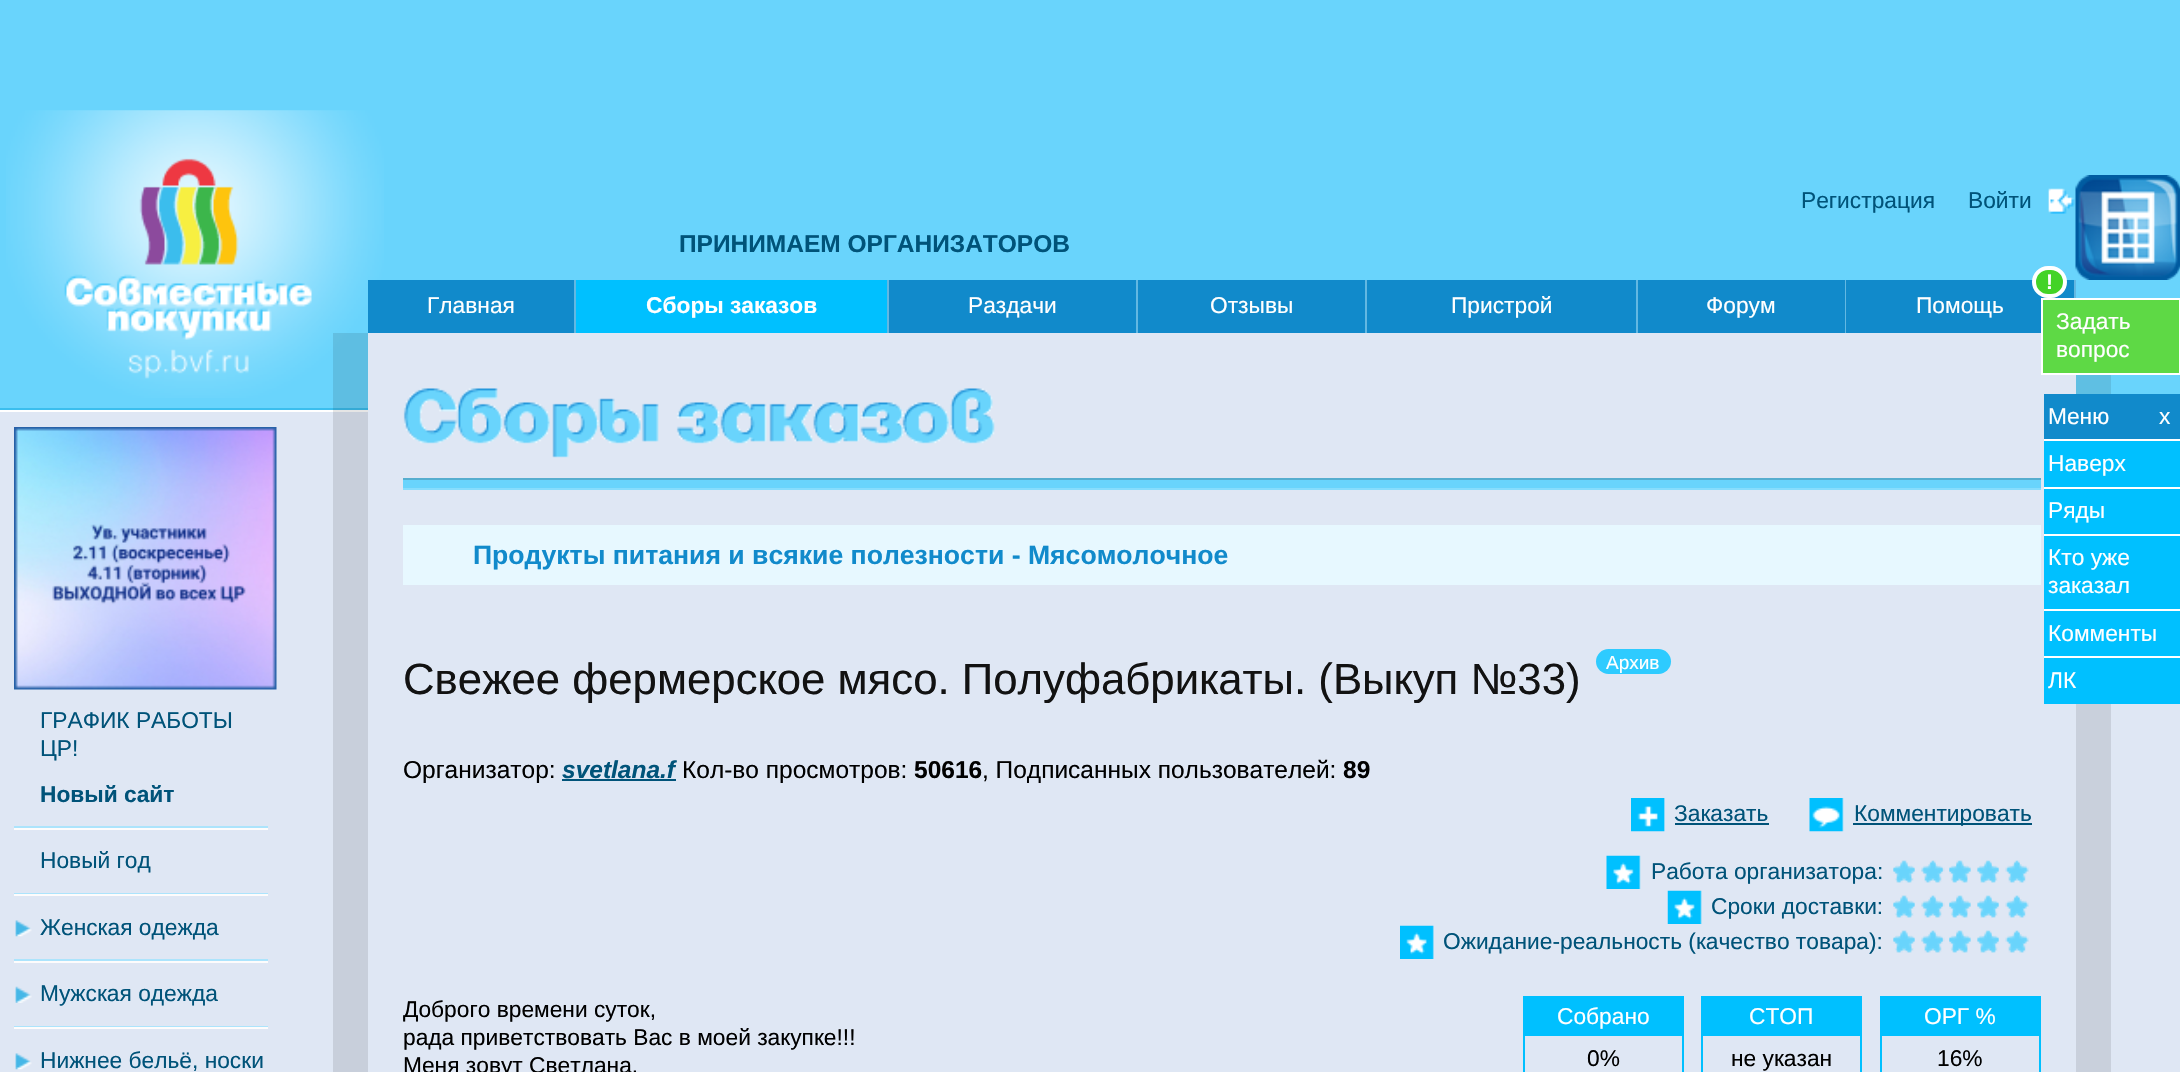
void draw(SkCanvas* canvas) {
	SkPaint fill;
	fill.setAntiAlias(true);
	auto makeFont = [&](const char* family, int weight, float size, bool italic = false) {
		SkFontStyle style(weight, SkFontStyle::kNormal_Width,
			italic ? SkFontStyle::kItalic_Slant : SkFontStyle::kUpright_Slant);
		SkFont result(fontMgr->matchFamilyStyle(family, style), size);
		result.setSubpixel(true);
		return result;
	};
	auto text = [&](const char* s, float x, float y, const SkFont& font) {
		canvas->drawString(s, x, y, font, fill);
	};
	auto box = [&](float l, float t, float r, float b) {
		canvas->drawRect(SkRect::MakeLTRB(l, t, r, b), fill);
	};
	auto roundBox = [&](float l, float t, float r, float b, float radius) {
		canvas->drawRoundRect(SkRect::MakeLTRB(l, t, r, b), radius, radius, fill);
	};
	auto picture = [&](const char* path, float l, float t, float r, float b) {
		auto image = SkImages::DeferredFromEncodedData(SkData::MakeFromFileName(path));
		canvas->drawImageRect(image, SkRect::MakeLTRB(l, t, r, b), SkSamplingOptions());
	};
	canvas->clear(0xFF69D4FC);
	fill.setColor(0xFF5FBFE3);
	box(2076, 375, 2111, 394);
	fill.setColor(0xFF3BBEEE);
	box(0, 408, 368, 410);
	picture("image0.png", 6, 110, 384, 398);
	picture("image1.png", 2048, 188, 2075, 214);
	picture("image2.png", 2075, 175, 2180, 280);
	fill.setColor(0xFFDFE7F4);
	box(0, 412, 2180, 1072);
	fill.setColor(0xFFC9D0DC);
	box(2076, 704, 2111, 1072);
	fill.setColor(0xFFFFFFFF);
	box(0, 410, 368, 412);
	fill.setColor(0xFF118ACB);
	box(368, 280, 1845, 333);
	fill.setColor(0xFF63B8E2);
	box(574, 280, 576, 333);
	box(887, 280, 889, 333);
	fill.setColor(0xFF00C0FF);
	box(576, 280, 887, 333);
	fill.setColor(0xFF63B8E2);
	box(1136, 280, 1138, 333);
	box(1365, 280, 1367, 333);
	box(1636, 280, 1638, 333);
	box(1845, 280, 1846, 333);
	box(2074, 280, 2076, 298);
	fill.setColor(0xFF118ACB);
	box(1846, 280, 2074, 333);
	fill.setColor(0xFF43D327);
	canvas->drawRoundRect(SkRect::MakeLTRB(2034, 268, 2065, 296), 14, 14, fill);
	fill.setStyle(SkPaint::kStroke_Style);
	fill.setStrokeWidth(4);
	fill.setColor(0xFFFFFFFF);
	canvas->drawRoundRect(SkRect::MakeLTRB(2034, 268, 2065, 296), 14, 14, fill);
	picture("image3.png", 14, 427, 277, 690);
	fill.setStyle(SkPaint::kFill_Style);
	fill.setColor(0xFFACE4FC);
	box(14, 826, 268, 828);
	fill.setColor(0xFFFDFCFC);
	box(14, 828, 268, 830);
	fill.setColor(0xFFACE4FC);
	box(14, 893, 268, 894);
	fill.setColor(0xFFFDFCFC);
	box(14, 894, 268, 896);
	fill.setColor(0xFFACE4FC);
	box(14, 959, 268, 961);
	picture("image4.png", 15, 920, 32, 937);
	fill.setColor(0xFFFDFCFC);
	box(14, 961, 268, 963);
	fill.setColor(0xFFACE4FC);
	box(14, 1026, 268, 1027);
	picture("image5.png", 15, 986, 32, 1003);
	fill.setColor(0xFFFDFCFC);
	box(14, 1027, 268, 1029);
	picture("image4.png", 15, 1053, 32, 1070);
	fill.setColor(0x1A000000);
	box(333, 333, 368, 1072);
	fill.setColor(0xFFDFE7F4);
	box(368, 333, 2076, 412);
	picture("image6.png", 403, 388, 995, 458);
	fill.setColor(0xFF69D4FC);
	box(403, 480, 2041, 488);
	fill.setColor(0xFF56AECF);
	box(403, 478, 2041, 480);
	fill.setColor(0xFF87DDFD);
	box(403, 488, 2041, 490);
	fill.setColor(0xFFE7F8FF);
	box(403, 525, 2041, 585);
	fill.setColor(0xFF2ECBFF);
	roundBox(1596, 649, 1671, 674, 12.5f);
	fill.setColor(0xFF005379);
	box(562, 779, 676, 781);
	picture("image7.png", 1631, 798, 1665, 832);
	box(1675, 823, 1769, 825);
	picture("image8.png", 1809, 798, 1844, 832);
	box(1853, 823, 2032, 825);
	picture("image9.png", 1606, 855, 1641, 889);
	picture("image10.png", 1893, 860, 2029, 883);
	picture("image11.png", 1893, 860, 2029, 883);
	picture("image12.png", 1667, 890, 1702, 924);
	picture("image10.png", 1893, 895, 2029, 918);
	picture("image11.png", 1893, 895, 2029, 918);
	picture("image13.png", 1400, 925, 1434, 959);
	picture("image10.png", 1893, 930, 2029, 953);
	picture("image11.png", 1893, 930, 2029, 953);
	fill.setStyle(SkPaint::kStroke_Style);
	fill.setStrokeWidth(2);
	fill.setColor(0xFF00C0FF);
	canvas->drawRect(SkRect::MakeLTRB(1524, 997, 1683, 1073), fill);
	fill.setStyle(SkPaint::kFill_Style);
	box(1525, 998, 1682, 1036);
	fill.setStyle(SkPaint::kStroke_Style);
	canvas->drawRect(SkRect::MakeLTRB(1702, 997, 1861, 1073), fill);
	fill.setStyle(SkPaint::kFill_Style);
	box(1703, 998, 1860, 1036);
	fill.setStyle(SkPaint::kStroke_Style);
	canvas->drawRect(SkRect::MakeLTRB(1881, 997, 2040, 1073), fill);
	fill.setStyle(SkPaint::kFill_Style);
	box(1882, 998, 2039, 1036);
	fill.setColor(0xFF118ACB);
	box(2044, 394, 2180, 439);
	fill.setColor(0xFF00C0FF);
	box(2044, 441, 2180, 487);
	fill.setColor(0xFFFFFFFF);
	box(2044, 439, 2180, 441);
	fill.setColor(0xFF00C0FF);
	box(2044, 489, 2180, 534);
	fill.setColor(0xFFFFFFFF);
	box(2044, 487, 2180, 489);
	fill.setColor(0xFF00C0FF);
	box(2044, 536, 2180, 609);
	fill.setColor(0xFFFFFFFF);
	box(2044, 534, 2180, 536);
	fill.setColor(0xFF00C0FF);
	box(2044, 611, 2180, 656);
	fill.setColor(0xFFFFFFFF);
	box(2044, 609, 2180, 611);
	fill.setColor(0xFF00C0FF);
	box(2044, 658, 2180, 704);
	fill.setColor(0xFFFFFFFF);
	box(2044, 656, 2180, 658);
	fill.setColor(0xFF5ED945);
	canvas->drawRect(SkRect::MakeLTRB(2042, 299, 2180, 374), fill);
	fill.setStyle(SkPaint::kStroke_Style);
	fill.setColor(0xFFFFFFFF);
	canvas->drawRect(SkRect::MakeLTRB(2042, 299, 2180, 374), fill);
	auto font1 = makeFont("Liberation Sans", 400, 22.75f);
	fill.setStyle(SkPaint::kFill_Style);
	fill.setColor(0xFF005379);
	text("Регистрация", 1801, 208, font1);
	text("Войти", 1968, 208, font1);
	auto font2 = makeFont("Liberation Sans", 700, 24.5f);
	text("ПРИНИМАЕМ ОРГАНИЗАТОРОВ", 679, 252, font2);
	fill.setColor(0xFFFFFFFF);
	text("Главная", 427, 313, font1);
	auto font3 = makeFont("Liberation Sans", 700, 22.75f);
	text("Сборы заказов", 646, 313, font3);
	text("Раздачи", 968, 313, font1);
	text("Отзывы", 1210, 313, font1);
	text("Пристрой", 1451, 313, font1);
	text("Форум", 1706, 313, font1);
	auto font4 = makeFont("Liberation Sans", 700, 21);
	text("!", 2046, 289, font4);
	text("Помощь", 1916, 313, font1);
	fill.setColor(0xFF005379);
	text("ГРАФИК РАБОТЫ", 40, 728, font1);
	text("ЦР!", 40, 756, font1);
	text("Новый сайт", 40, 802, font3);
	text("Новый год", 40, 868, font1);
	text("Женская одежда", 40, 935, font1);
	text("Мужская одежда", 40, 1001, font1);
	text("Нижнее бельё, носки", 40, 1068, font1);
	auto font5 = makeFont("Liberation Sans", 700, 26.6f);
	fill.setColor(0xFF118ACB);
	text("Продукты питания и всякие полезности - Мясомолочное", 473, 564, font5);
	auto font6 = makeFont("Liberation Sans", 400, 43.75f);
	fill.setColor(0xFF121212);
	text("Свежее фермерское мясо. Полуфабрикаты. (Выкуп №33)", 403, 694, font6);
	auto font7 = makeFont("Liberation Sans", 400, 19);
	fill.setColor(0xFFFFFFFF);
	text("Архив", 1606, 669, font7);
	auto font8 = makeFont("Liberation Sans", 400, 24.5f);
	fill.setColor(0xFF000000);
	text("Организатор:", 403, 778, font8);
	auto font9 = makeFont("Liberation Sans", 700, 24.5f, true);
	fill.setColor(0xFF005379);
	text("svetlana.f", 562, 778, font9);
	fill.setColor(0xFF000000);
	text("Кол-во просмотров:", 682, 778, font8);
	text("50616", 914, 778, font2);
	text(", Подписанных пользователей:", 982, 778, font8);
	text("89", 1343, 778, font2);
	fill.setColor(0xFF005379);
	text("Заказать", 1674, 821, font1);
	text("Комментировать", 1854, 821, font1);
	text("Работа организатора:", 1651, 879, font1);
	text("Сроки доставки:", 1711, 914, font1);
	text("Ожидание-реальность (качество товара):", 1443, 949, font1);
	fill.setColor(0xFF000000);
	text("Доброго времени суток,", 403, 1017, font1);
	text("рада приветствовать Вас в моей закупке!!!", 403, 1045, font1);
	text("Меня зовут Светлана.", 403, 1073, font1);
	fill.setColor(0xFFFFFFFF);
	text("Собрано", 1557, 1024, font1);
	fill.setColor(0xFF000000);
	text("0%", 1587, 1066, font1);
	fill.setColor(0xFFFFFFFF);
	text("СТОП", 1749, 1024, font1);
	fill.setColor(0xFF000000);
	text("не указан", 1731, 1066, font1);
	fill.setColor(0xFFFFFFFF);
	text("ОРГ %", 1924, 1024, font1);
	fill.setColor(0xFF000000);
	text("16%", 1937, 1066, font1);
	fill.setColor(0xFFFFFFFF);
	text("Меню", 2048, 424, font1);
	text("x", 2159, 424, font1);
	text("Наверх", 2048, 471, font1);
	text("Ряды", 2048, 518, font1);
	text("Кто уже", 2048, 565, font1);
	text("заказал", 2048, 593, font1);
	text("Комменты", 2048, 641, font1);
	text("ЛК", 2048, 688, font1);
	text("Задать", 2056, 329, font1);
	text("вопрос", 2056, 357, font1);
}
